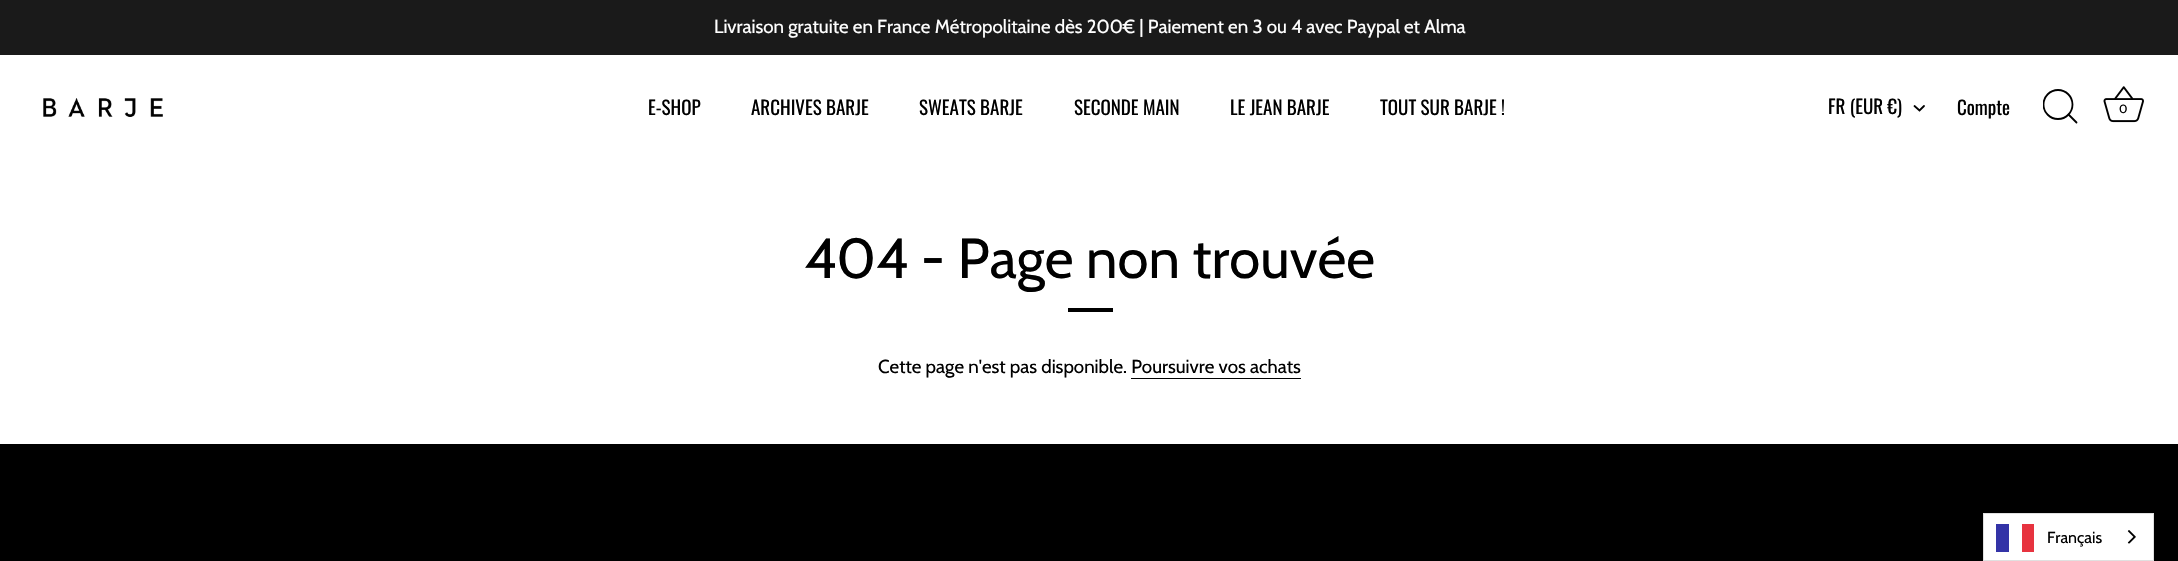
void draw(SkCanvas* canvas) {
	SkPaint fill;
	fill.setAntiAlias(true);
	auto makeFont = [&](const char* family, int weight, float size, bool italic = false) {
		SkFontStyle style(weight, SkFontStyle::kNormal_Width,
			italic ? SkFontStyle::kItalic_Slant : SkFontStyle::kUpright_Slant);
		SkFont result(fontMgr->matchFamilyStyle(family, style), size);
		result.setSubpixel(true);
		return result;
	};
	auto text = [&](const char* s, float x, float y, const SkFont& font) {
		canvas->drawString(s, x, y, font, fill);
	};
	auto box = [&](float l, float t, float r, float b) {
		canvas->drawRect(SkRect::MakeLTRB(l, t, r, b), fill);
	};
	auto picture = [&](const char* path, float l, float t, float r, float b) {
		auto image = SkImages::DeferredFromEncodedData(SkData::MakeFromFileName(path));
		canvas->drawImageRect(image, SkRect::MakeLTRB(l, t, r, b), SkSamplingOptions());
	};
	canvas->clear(0xFFFFFFFF);
	fill.setColor(0xFF1A1A1A);
	box(0, 0, 2178, 55);
	picture("image0.png", 43, 98, 163, 117);
	fill.setStyle(SkPaint::kStroke_Style);
	fill.setStrokeWidth(1.8f);
	fill.setStrokeCap(SkPaint::kRound_Cap);
	fill.setColor(0xFF000000);
	canvas->drawPath(SkPathBuilder().moveTo(1914.5f, 106).lineTo(1919.5f, 110.5f).lineTo(1924, 106).detach(), fill);
	canvas->save();
	canvas->clipRect(SkRect::MakeLTRB(2043, 89, 2079, 125));
	fill.setStrokeCap(SkPaint::kButt_Cap);
	canvas->drawCircle(2058, 104.5f, 14.5f, fill);
	canvas->restore();
	fill.setStrokeCap(SkPaint::kRound_Cap);
	fill.setStrokeJoin(SkPaint::kRound_Join);
	canvas->drawPath(SkPathBuilder().moveTo(2076.5f, 122.5f).lineTo(2068.5f, 114.5f).detach(), fill);
	picture("image1.png", 2103, 86, 2144, 123);
	fill.setStyle(SkPaint::kFill_Style);
	box(1068, 308, 1113, 312);
	box(1131, 378, 1301, 379);
	box(0, 444, 2178, 561);
	fill.setColor(0xFFFFFFFF);
	canvas->drawRect(SkRect::MakeLTRB(1983.5f, 513.5f, 2153.5f, 560.5f), fill);
	fill.setStyle(SkPaint::kStroke_Style);
	fill.setStrokeWidth(1);
	fill.setStrokeCap(SkPaint::kButt_Cap);
	fill.setStrokeJoin(SkPaint::kMiter_Join);
	fill.setColor(0xFFE0E0E0);
	canvas->drawRect(SkRect::MakeLTRB(1983.5f, 513.5f, 2153.5f, 560.5f), fill);
	fill.setStyle(SkPaint::kFill_Style);
	fill.setColor(0xFF3333A7);
	box(1996, 524, 2009, 552);
	fill.setColor(0xFFE7333F);
	box(2022, 524, 2034, 552);
	picture("image2.png", 2127, 530, 2136, 544);
	auto font1 = makeFont("Cabin", 400, 18.75f);
	fill.setColor(0xFFFFFFFF);
	text("Livraison gratuite en France Métropolitaine dès 200€ | Paiement en 3 ou 4 avec Paypal et Alma", 714, 33, font1);
	auto font2 = makeFont("Oswald", 400, 19);
	fill.setColor(0xFF000000);
	text("E-SHOP", 648, 115, font2);
	text("ARCHIVES BARJE", 751, 115, font2);
	text("SWEATS BARJE", 919, 115, font2);
	text("SECONDE MAIN", 1074, 115, font2);
	text("LE JEAN BARJE", 1230, 115, font2);
	text("TOUT SUR BARJE !", 1380, 115, font2);
	text("FR (EUR €)", 1828, 114, font2);
	text("Compte", 1957, 115, font2);
	auto font3 = makeFont("Cabin", 400, 12);
	text("0", 2119, 113, font3);
	auto font4 = makeFont("Cabin", 400, 56.25f);
	text("404 - Page non trouvée", 804, 278, font4);
	text("Cette page n'est pas disponible. Poursuivre vos achats", 878, 373, font1);
	auto font5 = makeFont("Cabin", 400, 16);
	text("Français", 2047, 543, font5);
}
